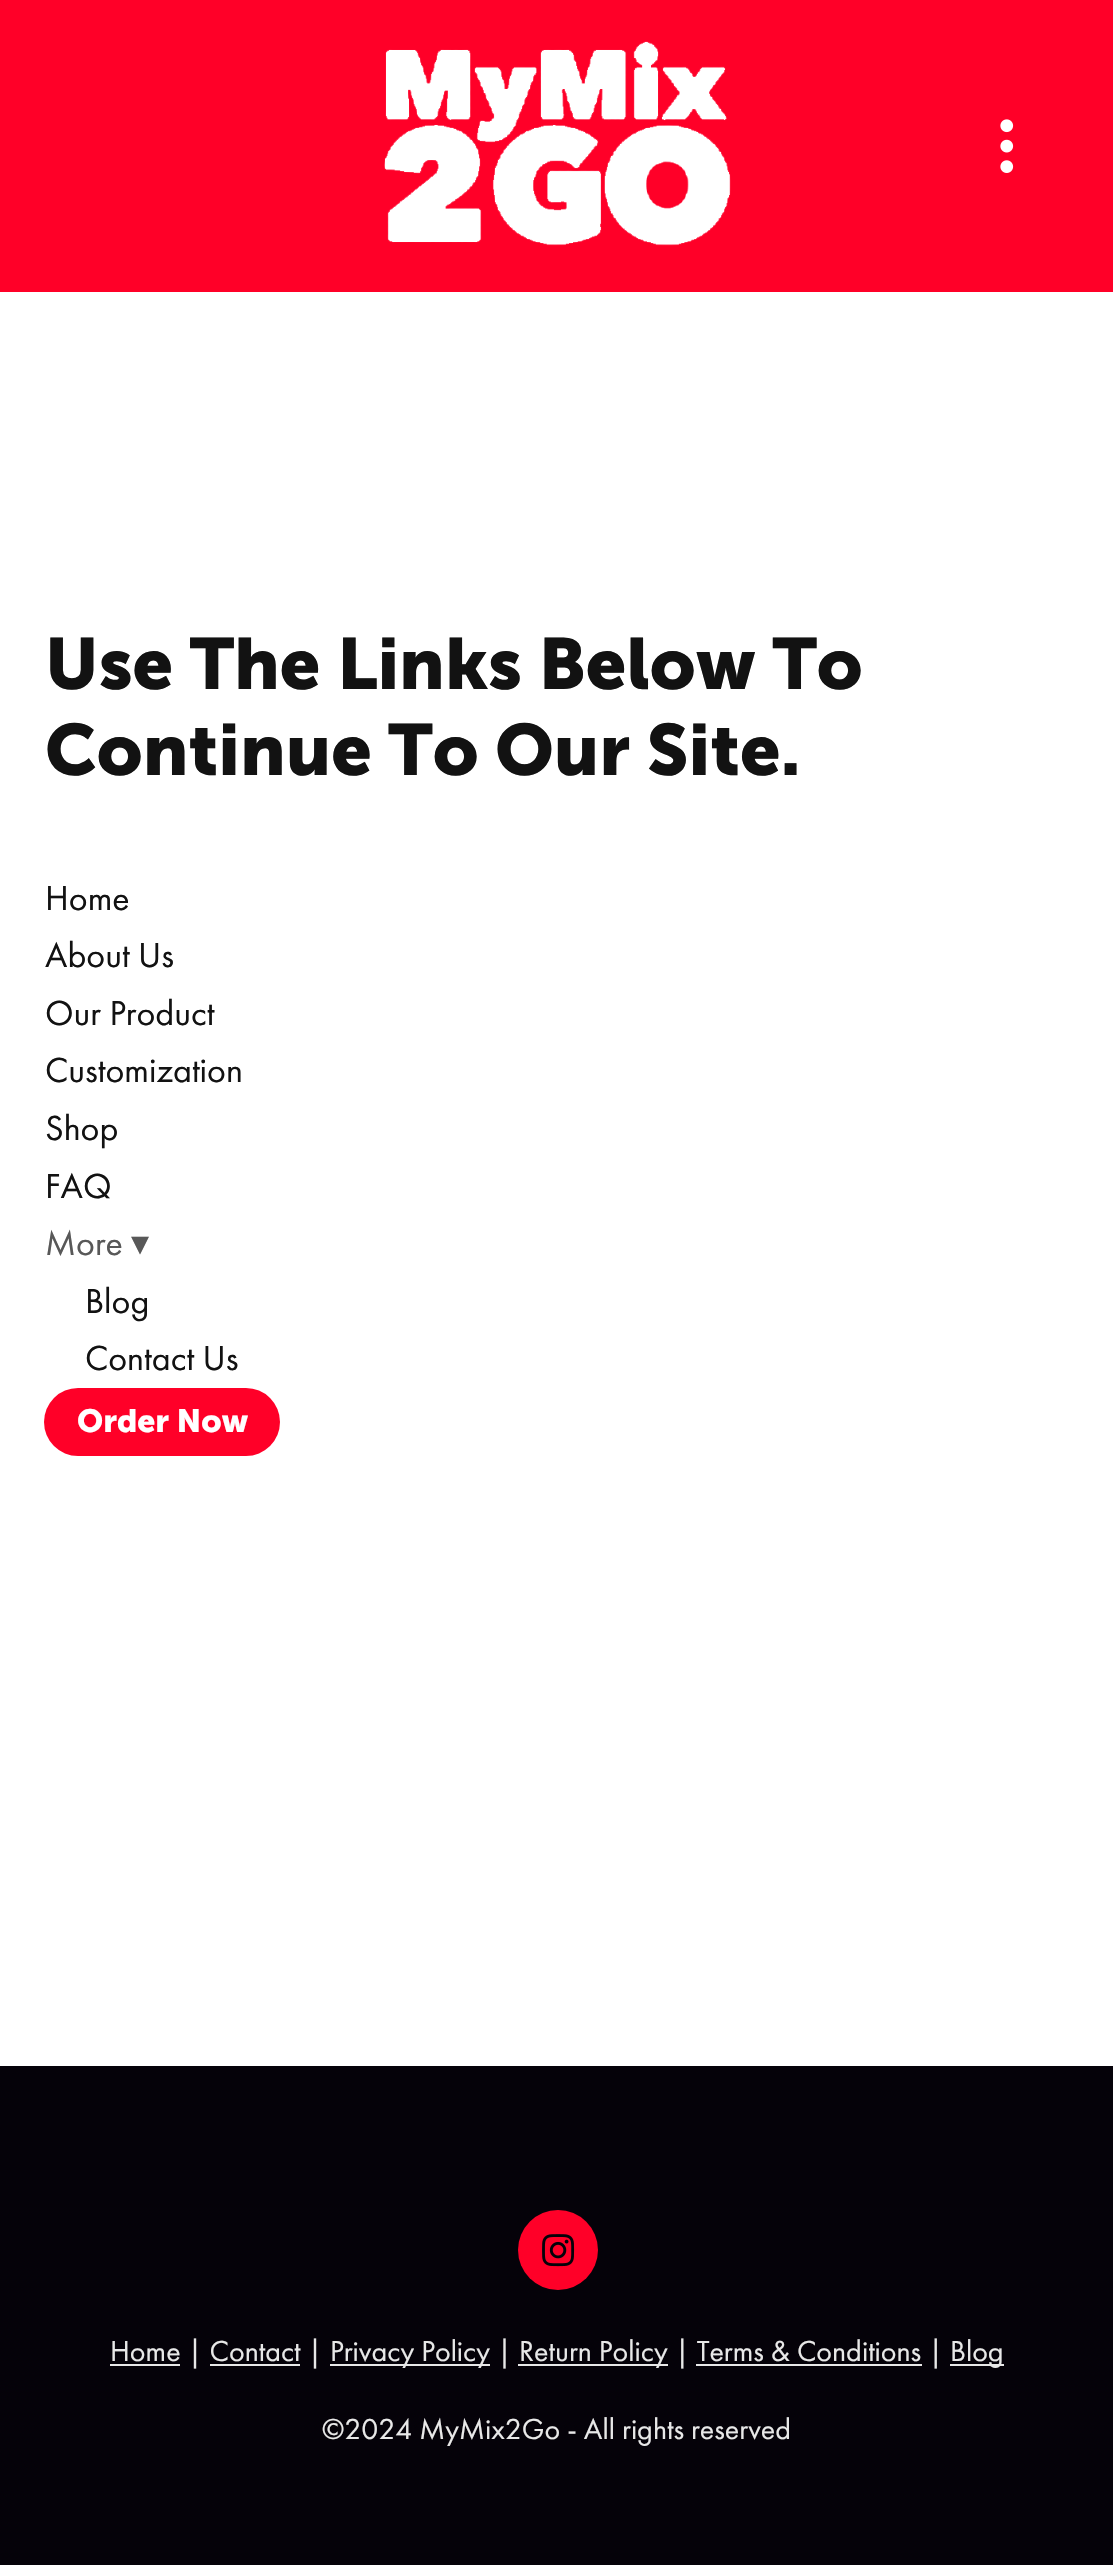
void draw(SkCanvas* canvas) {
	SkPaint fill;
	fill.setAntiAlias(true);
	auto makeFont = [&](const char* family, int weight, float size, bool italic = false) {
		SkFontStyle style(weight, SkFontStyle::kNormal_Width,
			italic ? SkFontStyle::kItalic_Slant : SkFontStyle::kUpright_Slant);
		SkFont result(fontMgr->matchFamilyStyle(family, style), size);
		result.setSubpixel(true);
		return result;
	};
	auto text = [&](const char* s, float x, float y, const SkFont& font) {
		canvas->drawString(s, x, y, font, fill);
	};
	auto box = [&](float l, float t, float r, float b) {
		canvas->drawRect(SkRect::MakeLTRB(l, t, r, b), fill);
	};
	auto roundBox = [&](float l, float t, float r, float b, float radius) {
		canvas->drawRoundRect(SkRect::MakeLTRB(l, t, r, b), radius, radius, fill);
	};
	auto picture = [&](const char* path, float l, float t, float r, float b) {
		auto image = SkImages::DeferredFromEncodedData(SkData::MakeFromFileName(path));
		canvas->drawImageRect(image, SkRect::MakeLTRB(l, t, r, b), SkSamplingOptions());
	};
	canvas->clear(0xFFFFFFFF);
	fill.setColor(0xFFFF0028);
	box(0, 0, 1113, 292);
	picture("image0.png", 384, 41, 731, 246);
	picture("image1.png", 1000, 119, 1014, 173);
	roundBox(44, 1388, 280, 1456, 34);
	fill.setColor(0xFF050209);
	box(0, 2066, 1113, 2565);
	fill.setColor(0xFFFF0028);
	canvas->drawCircle(558, 2250, 40, fill);
	picture("image2.png", 542, 2234, 575, 2267);
	fill.setColor(0xFFE8E8E8);
	box(110, 2364, 180, 2366);
	box(330, 2364, 490, 2366);
	box(518, 2364, 668, 2366);
	box(950, 2364, 1004, 2366);
	box(210, 2364, 300, 2366);
	box(696, 2364, 922, 2366);
	auto font1 = makeFont("Museo Sans", 700, 72);
	fill.setColor(0xFF121212);
	text("Use The Links Below To", 45, 689, font1);
	text("Continue To Our Site.", 45, 775, font1);
	auto font2 = makeFont("Futura PT", 400, 36);
	text("Home", 45, 910, font2);
	text("About Us", 45, 967, font2);
	text("Our Product", 45, 1025, font2);
	text("Customization", 45, 1082, font2);
	text("Shop", 45, 1140, font2);
	text("FAQ", 45, 1198, font2);
	fill.setColor(0xFF585858);
	text("More", 45, 1255, font2);
	auto font3 = makeFont("DejaVu Sans", 400, 36);
	text("▾", 131, 1255, font3);
	fill.setColor(0xFF121212);
	text("Blog", 85, 1313, font2);
	text("Contact Us", 85, 1370, font2);
	auto font4 = makeFont("Museo Sans", 700, 32);
	fill.setColor(0xFFFFFFFF);
	text("Order Now", 77, 1432, font4);
	auto font5 = makeFont("Futura PT", 400, 30);
	fill.setColor(0xFFE8E8E8);
	text("Home | Contact |", 110, 2361, font5);
	text("Privacy Policy |", 330, 2361, font5);
	text("Return Policy | Terms & Conditions |", 519, 2361, font5);
	text("Blog", 950, 2361, font5);
	text("©2024 MyMix2Go - All rights reserved", 322, 2439, font5);
}
